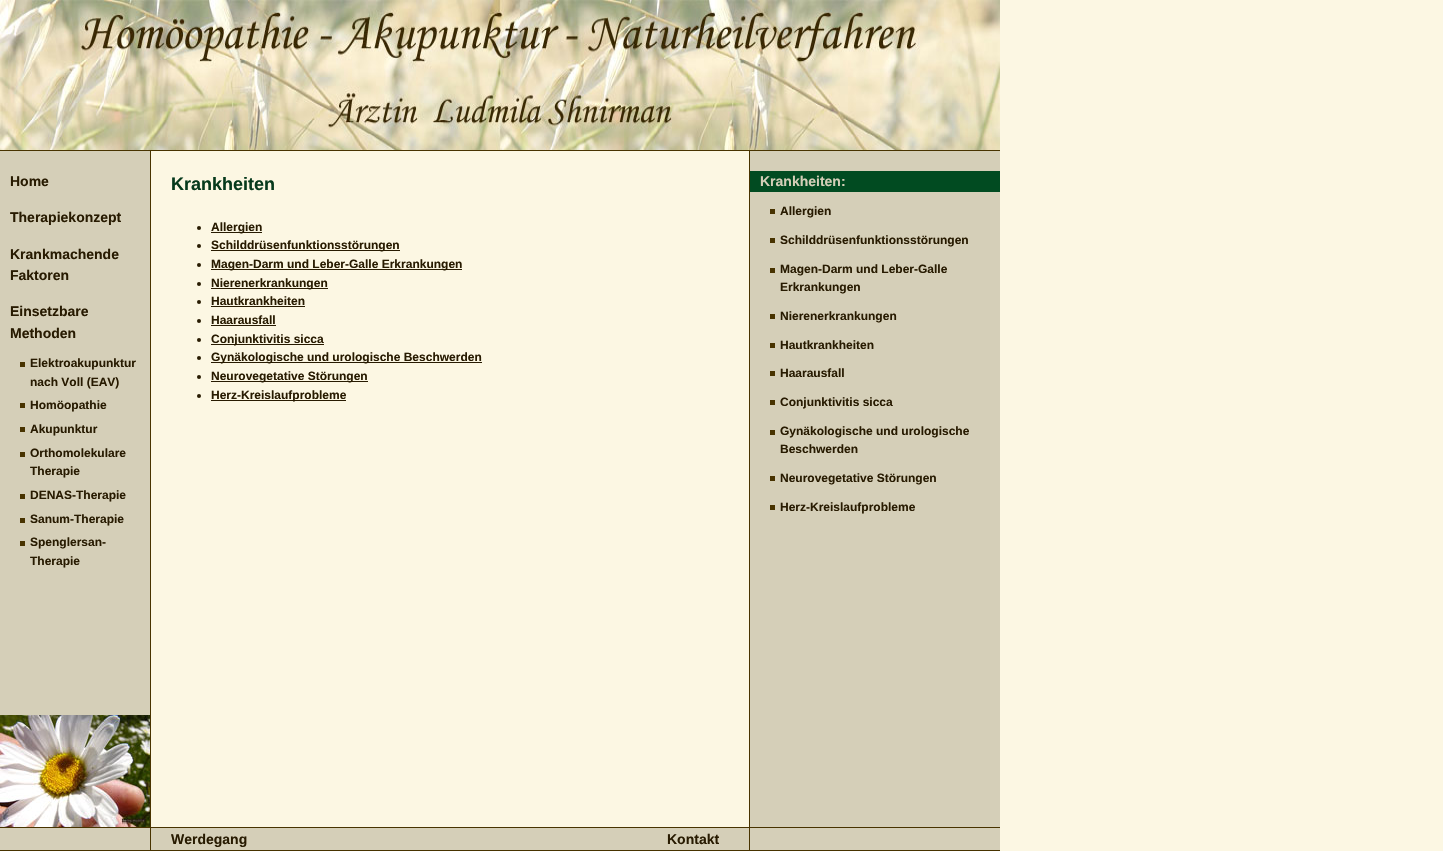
void draw(SkCanvas* canvas) {
	SkPaint fill;
	fill.setAntiAlias(true);
	auto makeFont = [&](const char* family, int weight, float size, bool italic = false) {
		SkFontStyle style(weight, SkFontStyle::kNormal_Width,
			italic ? SkFontStyle::kItalic_Slant : SkFontStyle::kUpright_Slant);
		SkFont result(fontMgr->matchFamilyStyle(family, style), size);
		result.setSubpixel(true);
		return result;
	};
	auto text = [&](const char* s, float x, float y, const SkFont& font) {
		canvas->drawString(s, x, y, font, fill);
	};
	auto box = [&](float l, float t, float r, float b) {
		canvas->drawRect(SkRect::MakeLTRB(l, t, r, b), fill);
	};
	auto picture = [&](const char* path, float l, float t, float r, float b) {
		auto image = SkImages::DeferredFromEncodedData(SkData::MakeFromFileName(path));
		canvas->drawImageRect(image, SkRect::MakeLTRB(l, t, r, b), SkSamplingOptions());
	};
	canvas->clear(0xFFFCF7E3);
	picture("image0.png", 0, 0, 1000, 150);
	fill.setColor(0xFF483300);
	box(0, 150, 1000, 151);
	fill.setColor(0xFFD5CFB8);
	box(0, 151, 150, 715);
	fill.setColor(0xFF483300);
	box(20, 362, 25, 367);
	box(20, 403, 25, 408);
	box(20, 427, 25, 432);
	box(20, 452, 25, 457);
	box(20, 494, 25, 499);
	box(20, 518, 25, 523);
	box(20, 541, 25, 546);
	picture("image1.png", 0, 715, 150, 827);
	box(150, 151, 151, 827);
	fill.setColor(0xFF281B01);
	canvas->drawCircle(199, 228, 2, fill);
	box(211, 232, 262, 233);
	canvas->drawCircle(199, 246, 2, fill);
	box(211, 250, 400, 251);
	canvas->drawCircle(199, 265, 2, fill);
	box(211, 269, 462, 270);
	canvas->drawCircle(199, 284, 2, fill);
	box(211, 288, 328, 289);
	canvas->drawCircle(199, 302, 2, fill);
	box(211, 306, 305, 307);
	canvas->drawCircle(199, 321, 2, fill);
	box(211, 325, 276, 326);
	canvas->drawCircle(199, 340, 2, fill);
	box(211, 344, 324, 345);
	canvas->drawCircle(199, 358, 2, fill);
	box(211, 362, 482, 363);
	canvas->drawCircle(199, 377, 2, fill);
	box(211, 381, 368, 382);
	canvas->drawCircle(199, 396, 2, fill);
	box(211, 400, 346, 401);
	fill.setColor(0xFF483300);
	box(749, 151, 750, 827);
	fill.setColor(0xFFD5CFB8);
	box(750, 151, 1000, 827);
	fill.setColor(0xFF014B21);
	box(750, 171, 1000, 192);
	fill.setColor(0xFF483300);
	box(770, 209, 775, 214);
	box(770, 238, 775, 243);
	box(770, 268, 775, 273);
	box(770, 314, 775, 319);
	box(770, 343, 775, 348);
	box(770, 371, 775, 376);
	box(770, 400, 775, 405);
	box(770, 430, 775, 435);
	box(770, 476, 775, 481);
	box(770, 505, 775, 510);
	box(0, 827, 1000, 828);
	fill.setColor(0xFFD5CFB8);
	box(0, 828, 150, 850);
	fill.setColor(0xFF483300);
	box(150, 828, 151, 850);
	fill.setColor(0xFFD5CFB8);
	box(151, 828, 749, 850);
	fill.setColor(0xFF483300);
	box(749, 828, 750, 850);
	fill.setColor(0xFFD5CFB8);
	box(750, 828, 1000, 850);
	fill.setColor(0xFF483300);
	box(0, 850, 1000, 851);
	auto font1 = makeFont("Liberation Sans", 700, 14);
	fill.setColor(0xFF281B01);
	text("Home", 10, 186, font1);
	text("Therapiekonzept", 10, 222, font1);
	text("Krankmachende", 10, 259, font1);
	text("Faktoren", 10, 280, font1);
	text("Einsetzbare", 10, 316, font1);
	text("Methoden", 10, 338, font1);
	auto font2 = makeFont("Liberation Sans", 700, 12);
	text("Elektroakupunktur", 30, 367, font2);
	text("nach Voll (EAV)", 30, 386, font2);
	text("Homöopathie", 30, 409, font2);
	text("Akupunktur", 30, 433, font2);
	text("Orthomolekulare", 30, 457, font2);
	text("Therapie", 30, 475, font2);
	text("DENAS-Therapie", 30, 499, font2);
	text("Sanum-Therapie", 30, 523, font2);
	text("Spenglersan-", 30, 546, font2);
	text("Therapie", 30, 565, font2);
	auto font3 = makeFont("Liberation Sans", 700, 18);
	fill.setColor(0xFF063A1C);
	text("Krankheiten", 171, 190, font3);
	fill.setColor(0xFF281B01);
	text("Allergien", 211, 231, font2);
	text("Schilddrüsenfunktionsstörungen", 211, 249, font2);
	text("Magen-Darm und Leber-Galle Erkrankungen", 211, 268, font2);
	text("Nierenerkrankungen", 211, 287, font2);
	text("Hautkrankheiten", 211, 305, font2);
	text("Haarausfall", 211, 324, font2);
	text("Conjunktivitis sicca", 211, 343, font2);
	text("Gynäkologische und urologische Beschwerden", 211, 361, font2);
	text("Neurovegetative Störungen", 211, 380, font2);
	text("Herz-Kreislaufprobleme", 211, 399, font2);
	fill.setColor(0xFFD5CFB8);
	text("Krankheiten:", 760, 186, font1);
	fill.setColor(0xFF281B01);
	text("Allergien", 780, 215, font2);
	text("Schilddrüsenfunktionsstörungen", 780, 244, font2);
	text("Magen-Darm und Leber-Galle", 780, 273, font2);
	text("Erkrankungen", 780, 291, font2);
	text("Nierenerkrankungen", 780, 320, font2);
	text("Hautkrankheiten", 780, 349, font2);
	text("Haarausfall", 780, 377, font2);
	text("Conjunktivitis sicca", 780, 406, font2);
	text("Gynäkologische und urologische", 780, 435, font2);
	text("Beschwerden", 780, 453, font2);
	text("Neurovegetative Störungen", 780, 482, font2);
	text("Herz-Kreislaufprobleme", 780, 511, font2);
	text("Werdegang", 171, 844, font1);
	text("Kontakt", 667, 844, font1);
}
